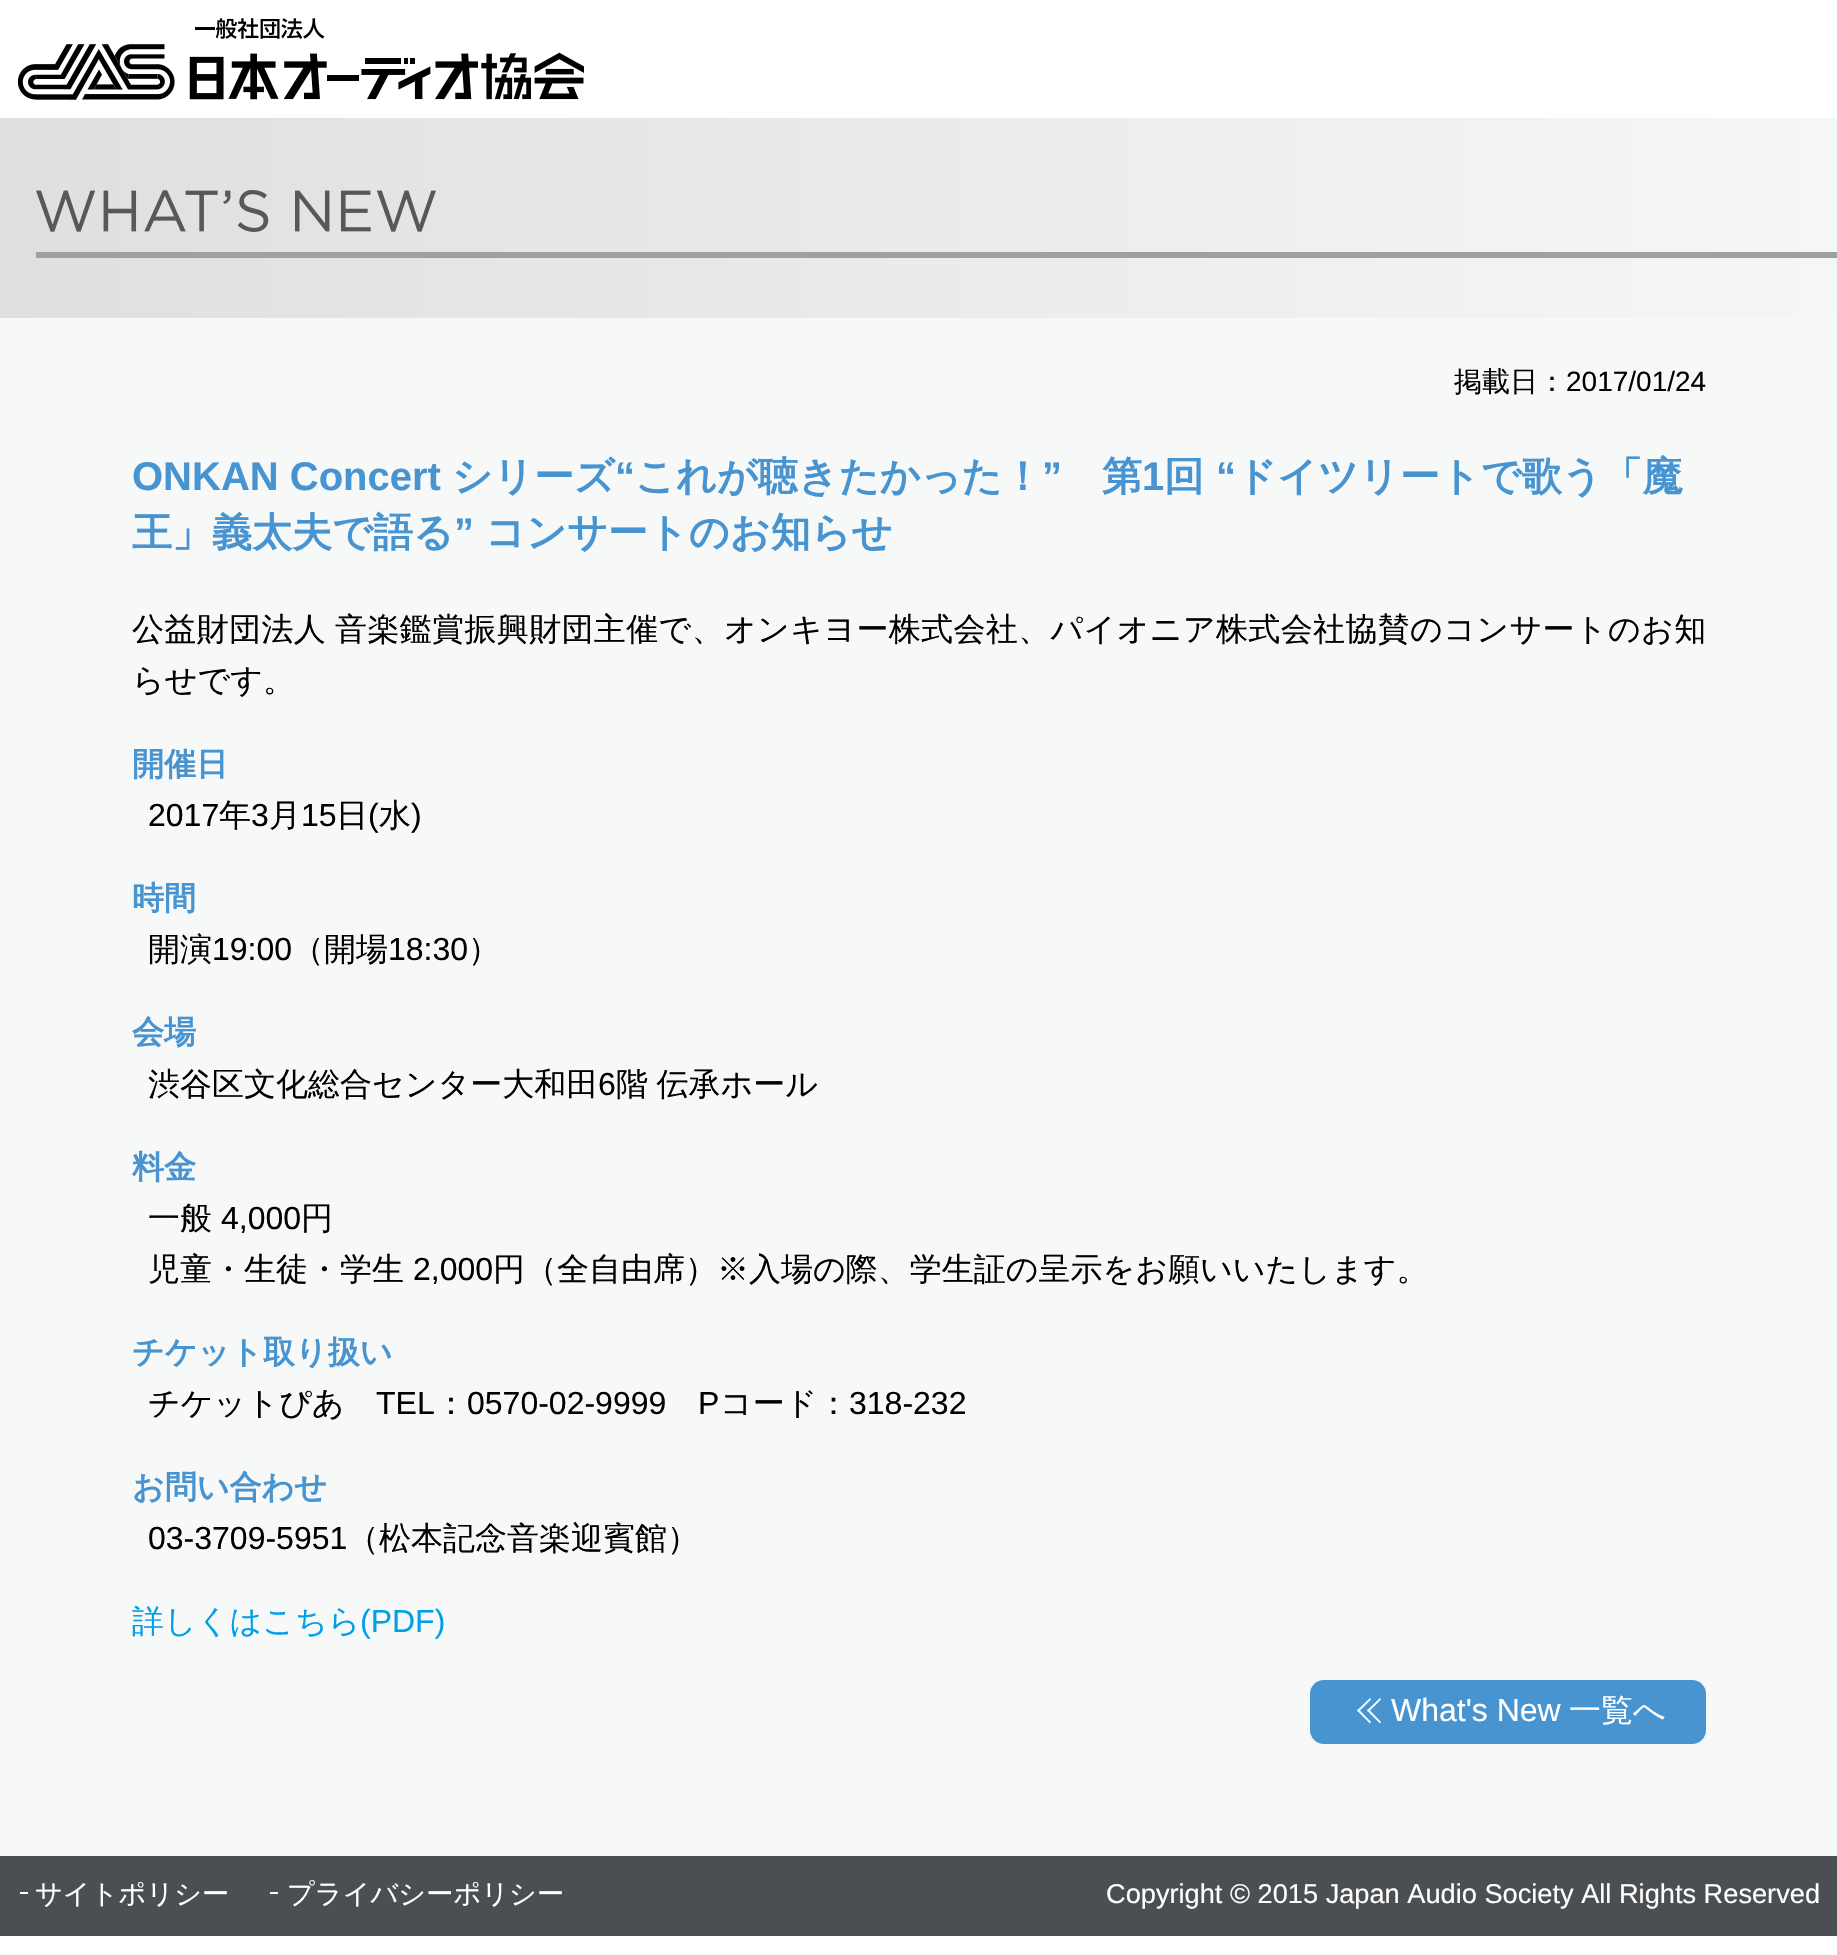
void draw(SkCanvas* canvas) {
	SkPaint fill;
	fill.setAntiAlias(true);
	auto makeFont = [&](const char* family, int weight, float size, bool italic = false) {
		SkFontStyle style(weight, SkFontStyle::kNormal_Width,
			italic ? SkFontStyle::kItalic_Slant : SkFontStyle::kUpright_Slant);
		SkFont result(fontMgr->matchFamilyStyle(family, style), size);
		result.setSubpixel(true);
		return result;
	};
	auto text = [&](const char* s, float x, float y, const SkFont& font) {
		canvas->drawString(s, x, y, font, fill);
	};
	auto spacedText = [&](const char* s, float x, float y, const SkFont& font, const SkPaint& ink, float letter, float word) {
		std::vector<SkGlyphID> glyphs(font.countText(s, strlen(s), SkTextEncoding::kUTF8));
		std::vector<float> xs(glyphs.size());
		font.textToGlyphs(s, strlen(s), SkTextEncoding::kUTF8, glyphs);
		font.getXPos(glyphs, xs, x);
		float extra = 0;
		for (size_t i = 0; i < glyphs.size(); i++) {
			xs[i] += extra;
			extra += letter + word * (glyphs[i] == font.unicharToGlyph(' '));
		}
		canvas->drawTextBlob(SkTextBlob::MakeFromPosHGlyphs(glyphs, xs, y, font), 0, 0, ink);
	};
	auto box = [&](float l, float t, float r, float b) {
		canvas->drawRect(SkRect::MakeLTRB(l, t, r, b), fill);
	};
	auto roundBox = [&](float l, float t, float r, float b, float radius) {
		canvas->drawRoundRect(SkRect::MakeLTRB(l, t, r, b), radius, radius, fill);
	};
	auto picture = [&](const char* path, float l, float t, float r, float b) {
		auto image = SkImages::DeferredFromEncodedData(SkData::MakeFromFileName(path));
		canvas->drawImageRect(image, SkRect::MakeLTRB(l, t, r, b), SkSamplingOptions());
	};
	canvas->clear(0xFFFFFFFF);
	picture("image0.png", 18, 18, 584, 100);
	{
		const SkColor colors[] = {0xFFDFDFDF, 0xFFF5F7F7};
		const float stops[] = {0, 1};
		const SkPoint ends[] = {{0, 159}, {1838, 159}};
		fill.setShader(SkGradientShader::MakeLinear(ends, colors, stops, 2, SkTileMode::kClamp));
		fill.setAlpha(255);
	}
	box(0, 118, 1837, 318);
	fill.setShader(nullptr);
	fill.setColor(0xFF9FA0A0);
	box(36, 252, 1837, 258);
	picture("image1.png", 36, 190, 436, 232);
	fill.setColor(0xFFF7F8F8);
	box(0, 318, 1837, 1856);
	fill.setColor(0xFF4794D1);
	roundBox(1310, 1680, 1706, 1744, 14);
	fill.setColor(0xFFFFFFFF);
	canvas->drawPath(SkPathBuilder().moveTo(1358.5f, 1709).lineTo(1371, 1722).lineTo(1370, 1723.5f).lineTo(1357, 1710.5f).close().detach(), fill);
	canvas->drawPath(SkPathBuilder().moveTo(1370, 1698).lineTo(1371, 1699.5f).lineTo(1358.5f, 1712).lineTo(1357, 1710.5f).close().detach(), fill);
	canvas->drawPath(SkPathBuilder().moveTo(1368.5f, 1709).lineTo(1381, 1722).lineTo(1380, 1723.5f).lineTo(1367, 1710.5f).close().detach(), fill);
	canvas->drawPath(SkPathBuilder().moveTo(1380, 1698).lineTo(1381, 1699.5f).lineTo(1368.5f, 1712).lineTo(1367, 1710.5f).close().detach(), fill);
	fill.setColor(0xFF4C4F52);
	box(0, 1856, 1837, 1936);
	fill.setColor(0xFFFFFFFF);
	box(20, 1892, 28, 1894);
	box(270, 1892, 278, 1894);
	auto font1 = makeFont("WenQuanYi Zen Hei", 500, 28);
	fill.setColor(0xFF000000);
	text("掲載日：", 1454, 391, font1);
	auto font2 = makeFont("Liberation Sans", 400, 28);
	text("2017/01/24", 1566, 391, font2);
	auto font3 = makeFont("Liberation Sans", 700, 40);
	fill.setColor(0xFF4794D1);
	text("ONKAN Concert", 132, 490, font3);
	auto font4 = makeFont("WenQuanYi Zen Hei", 700, 40);
	text("シリーズ", 452, 490, font4);
	text("“", 615, 490, font3);
	text("これが聴きたかった！", 635, 490, font4);
	text("”", 1042, 490, font3);
	text("第", 1102, 490, font4);
	text("1", 1142, 490, font3);
	text("回", 1164, 490, font4);
	text("“", 1216, 490, font3);
	text("ドイツリートで歌う「魔", 1236, 490, font4);
	text("王」義太夫で語る", 132, 546, font4);
	text("”", 454, 546, font3);
	text("コンサートのお知らせ", 485, 546, font4);
	auto font5 = makeFont("WenQuanYi Zen Hei", 500, 32);
	fill.setColor(0xFF000000);
	spacedText("公益財団法人 音楽鑑賞振興財団主催で、オンキヨー株式会社、パイオニア株式会社協賛のコンサートのお知", 132, 640, font5, fill, 0.35f, -1);
	text("らせです。", 132, 691, font5);
	auto font6 = makeFont("WenQuanYi Zen Hei", 700, 32);
	fill.setColor(0xFF4794D1);
	text("開催日", 132, 775, font6);
	auto font7 = makeFont("Liberation Sans", 400, 32);
	fill.setColor(0xFF000000);
	text("2017", 148, 826, font7);
	text("年", 219, 826, font5);
	text("3", 251, 826, font7);
	text("月", 269, 826, font5);
	text("15", 301, 826, font7);
	text("日", 336, 826, font5);
	text("(", 368, 826, font7);
	text("水", 379, 826, font5);
	text(")", 411, 826, font7);
	fill.setColor(0xFF4794D1);
	text("時間", 132, 909, font6);
	fill.setColor(0xFF000000);
	text("開演", 148, 960, font5);
	text("19:00", 212, 960, font7);
	text("（開場", 292, 960, font5);
	text("18:30", 388, 960, font7);
	text("）", 468, 960, font5);
	fill.setColor(0xFF4794D1);
	text("会場", 132, 1043, font6);
	fill.setColor(0xFF000000);
	text("渋谷区文化総合センター大和田", 148, 1095, font5);
	text("6", 598, 1095, font7);
	spacedText("階 伝承ホール", 616, 1095, font5, fill, 0, -1);
	fill.setColor(0xFF4794D1);
	text("料金", 132, 1178, font6);
	fill.setColor(0xFF000000);
	text("一般", 148, 1229, font5);
	text("4,000", 221, 1229, font7);
	text("円", 301, 1229, font5);
	text("児童・生徒・学生", 148, 1280, font5);
	text("2,000", 413, 1280, font7);
	text("円（全自由席）※入場の際、学生証の呈示をお願いいたします。", 493, 1280, font5);
	fill.setColor(0xFF4794D1);
	text("チケット取り扱い", 132, 1363, font6);
	fill.setColor(0xFF000000);
	text("チケットぴあ", 148, 1414, font5);
	text("TEL", 376, 1414, font7);
	text("：", 435, 1414, font5);
	text("0570-02-9999", 467, 1414, font7);
	text("P", 698, 1414, font7);
	text("コード：", 720, 1414, font5);
	text("318-232", 849, 1414, font7);
	fill.setColor(0xFF4794D1);
	text("お問い合わせ", 132, 1498, font6);
	fill.setColor(0xFF000000);
	text("03-3709-5951", 148, 1549, font7);
	text("（松本記念音楽迎賓館）", 347, 1549, font5);
	fill.setColor(0xFF00A0E9);
	text("詳しくはこちら", 132, 1632, font5);
	text("(PDF)", 360, 1632, font7);
	fill.setColor(0xFFFFFFFF);
	text("What's New", 1391, 1721, font7);
	text("一覧へ", 1569, 1721, font5);
	auto font8 = makeFont("WenQuanYi Zen Hei", 500, 27.2f);
	text("サイトポリシー", 35, 1903, font8);
	text("プライバシーポリシー", 287, 1903, font8);
	auto font9 = makeFont("Liberation Sans", 400, 27.2f);
	text("Copyright © 2015 Japan Audio Society All Rights Reserved", 1106, 1903, font9);
}
